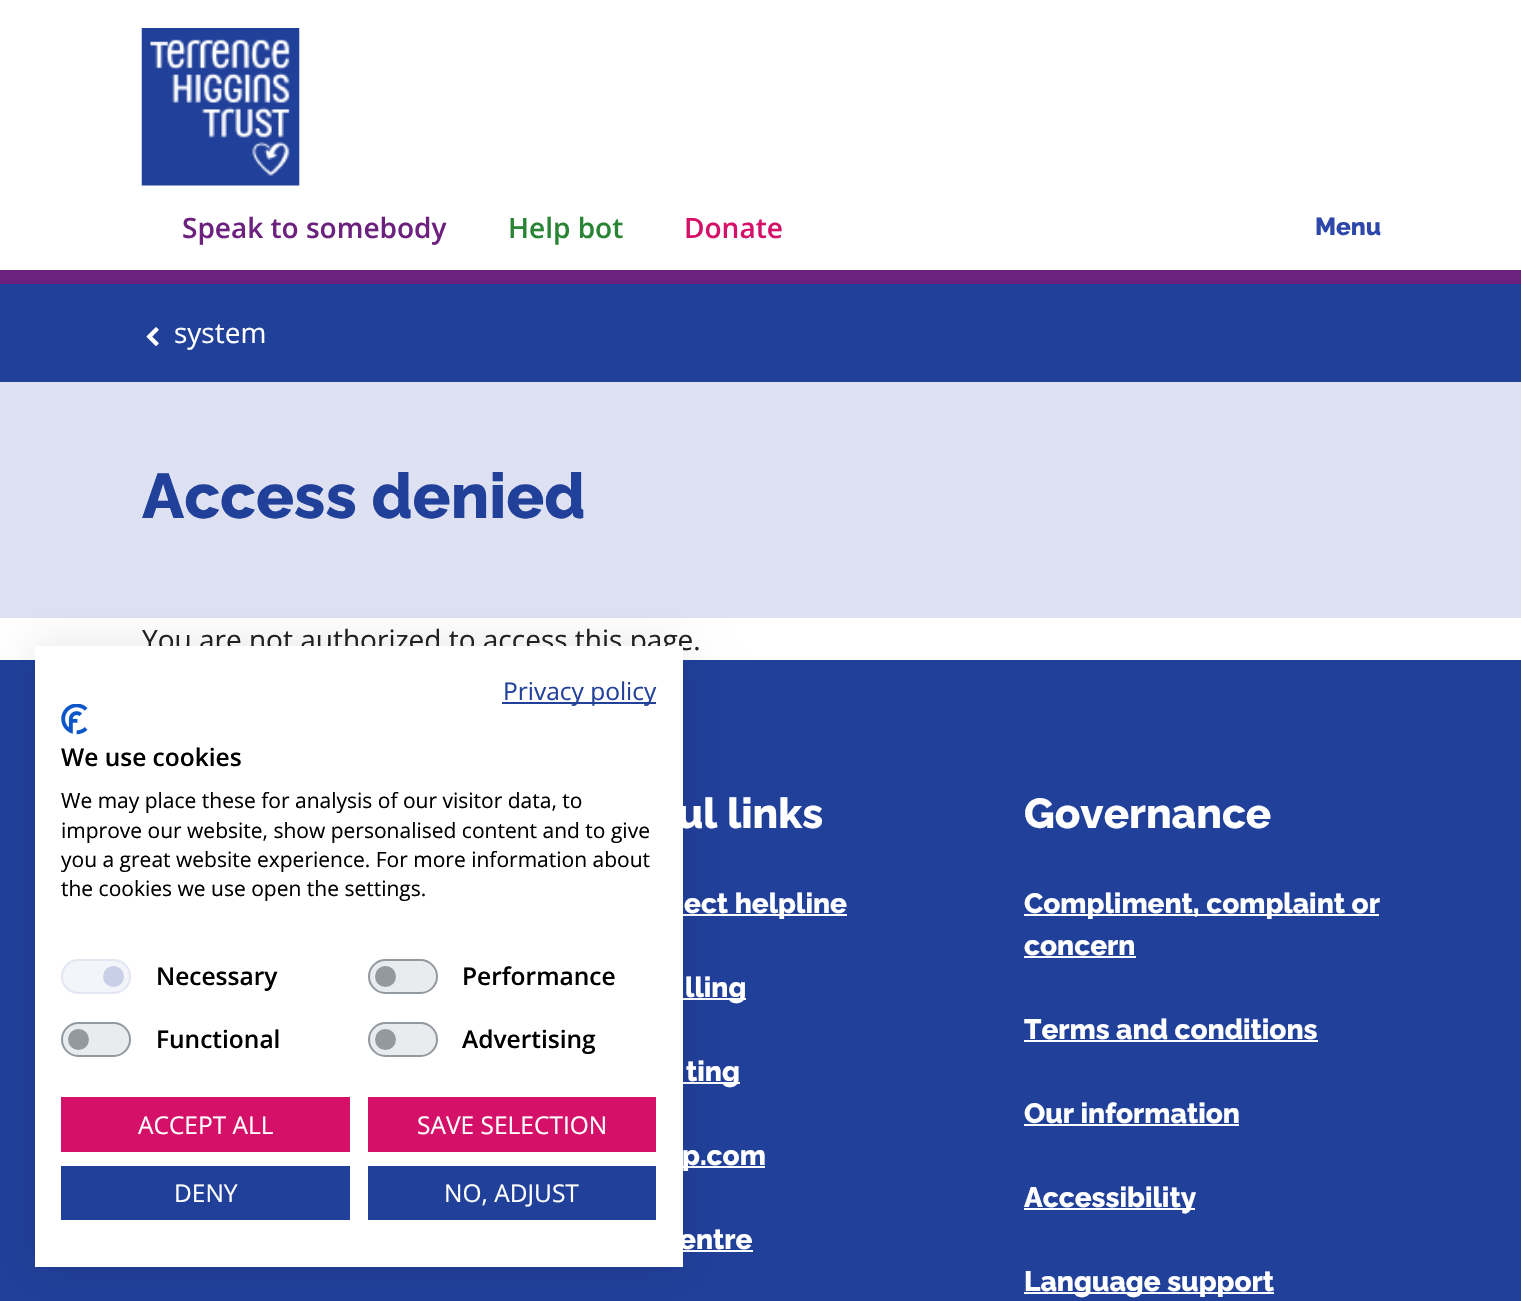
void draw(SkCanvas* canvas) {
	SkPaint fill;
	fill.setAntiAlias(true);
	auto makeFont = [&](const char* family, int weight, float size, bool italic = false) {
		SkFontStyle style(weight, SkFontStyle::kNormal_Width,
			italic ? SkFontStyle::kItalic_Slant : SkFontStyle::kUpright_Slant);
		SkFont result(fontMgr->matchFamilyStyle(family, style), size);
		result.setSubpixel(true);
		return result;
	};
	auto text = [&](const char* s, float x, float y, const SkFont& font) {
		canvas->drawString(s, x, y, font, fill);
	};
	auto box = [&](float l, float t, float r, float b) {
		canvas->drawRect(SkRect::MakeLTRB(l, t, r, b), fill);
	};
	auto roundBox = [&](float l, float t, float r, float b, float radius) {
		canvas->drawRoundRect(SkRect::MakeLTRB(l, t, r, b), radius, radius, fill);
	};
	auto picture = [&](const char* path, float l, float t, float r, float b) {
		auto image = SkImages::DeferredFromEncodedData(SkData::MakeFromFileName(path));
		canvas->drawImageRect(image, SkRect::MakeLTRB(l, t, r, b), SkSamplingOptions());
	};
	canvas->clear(0xFFFFFFFF);
	picture("image0.png", 141, 28, 300, 186);
	fill.setColor(0xFF6C217E);
	box(0, 270, 1521, 284);
	fill.setColor(0xFF21409A);
	box(0, 284, 1521, 382);
	picture("image1.png", 146, 327, 159, 346);
	fill.setColor(0xFFDDE1F2);
	box(0, 382, 1521, 618);
	fill.setColor(0xFF21409A);
	box(0, 660, 1521, 1301);
	fill.setColor(0xFFFFFFFF);
	box(683, 914, 847, 916);
	box(683, 998, 746, 1000);
	box(683, 1082, 740, 1084);
	box(683, 1166, 765, 1168);
	box(683, 1250, 753, 1252);
	box(1024, 914, 1379, 916);
	box(1024, 956, 1136, 958);
	box(1024, 1040, 1318, 1042);
	box(1024, 1124, 1239, 1126);
	box(1024, 1208, 1195, 1210);
	box(1024, 1292, 1274, 1294);
	fill.setColor(0x1A000000);
	fill.setMaskFilter(SkMaskFilter::MakeBlur(kNormal_SkBlurStyle, 21));
	canvas->drawRect(SkRect::MakeLTRB(35, 646, 683, 1267), fill);
	fill.setMaskFilter(nullptr);
	auto font1 = makeFont("Open Sans", 600, 28);
	fill.setColor(0xFF6C217E);
	text("Speak to somebody", 182, 238, font1);
	fill.setColor(0xFF2A8436);
	text("Help bot", 508, 238, font1);
	fill.setColor(0xFFD51069);
	text("Donate", 684, 238, font1);
	auto font2 = makeFont("Raleway", 800, 24.5f);
	fill.setColor(0xFF2D48AA);
	text("Menu", 1315, 235, font2);
	auto font3 = makeFont("Open Sans", 400, 28);
	fill.setColor(0xFFFFFFFF);
	text("system", 174, 343, font3);
	auto font4 = makeFont("Raleway", 800, 63);
	fill.setColor(0xFF21409A);
	text("Access denied", 142, 518, font4);
	fill.setColor(0xFF212121);
	text("You are not authorized to access this page.", 142, 650, font3);
	auto font5 = makeFont("Raleway", 800, 42);
	fill.setColor(0xFFFFFFFF);
	text("ul links", 677, 828, font5);
	auto font6 = makeFont("Raleway", 800, 28);
	text("ect helpline", 684, 913, font6);
	text("lling", 685, 997, font6);
	text("ting", 686, 1081, font6);
	text("p.com", 682, 1165, font6);
	text("entre", 679, 1249, font6);
	text("Governance", 1024, 828, font5);
	text("Compliment, complaint or", 1024, 913, font6);
	text("concern", 1024, 955, font6);
	text("Terms and conditions", 1024, 1039, font6);
	text("Our information", 1024, 1123, font6);
	text("Accessibility", 1024, 1207, font6);
	text("Language support", 1024, 1291, font6);
	box(35, 646, 683, 1267);
	fill.setColor(0xFF21409A);
	box(502, 702, 656, 704);
	auto font7 = makeFont("Open Sans", 400, 24.5f);
	text("Privacy policy", 503, 700, font7);
	picture("image2.png", 61, 704, 88, 735);
	auto font8 = makeFont("Open Sans", 600, 24.5f);
	fill.setColor(0xFF000000);
	text("We use cookies", 61, 766, font8);
	auto font9 = makeFont("Open Sans", 400, 21);
	text("We may place these for analysis of our visitor data, to", 61, 808, font9);
	text("improve our website, show personalised content and to give", 61, 838, font9);
	text("you a great website experience. For more information about", 61, 867, font9);
	text("the cookies we use open the settings.", 61, 896, font9);
	fill.setColor(0xFFF4F5FA);
	roundBox(61, 959, 131, 994, 17.5f);
	fill.setColor(0xFFC8CFE6);
	canvas->drawCircle(113.5f, 976.5f, 10.5f, fill);
	fill.setStyle(SkPaint::kStroke_Style);
	fill.setStrokeWidth(2);
	fill.setColor(0xFFE3E7F2);
	canvas->drawRoundRect(SkRect::MakeLTRB(62, 960, 130, 993), 16.5f, 16.5f, fill);
	fill.setStyle(SkPaint::kFill_Style);
	fill.setColor(0xFF000000);
	text("Necessary", 156, 985, font8);
	fill.setColor(0xFFE9ECEF);
	roundBox(368, 959, 438, 994, 17.5f);
	fill.setColor(0xFF92999F);
	canvas->drawCircle(385.5f, 976.5f, 10.5f, fill);
	fill.setStyle(SkPaint::kStroke_Style);
	fill.setColor(0xB36C757D);
	canvas->drawRoundRect(SkRect::MakeLTRB(369, 960, 437, 993), 16.5f, 16.5f, fill);
	fill.setStyle(SkPaint::kFill_Style);
	fill.setColor(0xFF000000);
	text("Performance", 462, 985, font8);
	fill.setColor(0xFFE9ECEF);
	roundBox(61, 1022, 131, 1057, 17.5f);
	fill.setColor(0xFF92999F);
	canvas->drawCircle(78.5f, 1039.5f, 10.5f, fill);
	fill.setStyle(SkPaint::kStroke_Style);
	fill.setColor(0xB36C757D);
	canvas->drawRoundRect(SkRect::MakeLTRB(62, 1023, 130, 1056), 16.5f, 16.5f, fill);
	fill.setStyle(SkPaint::kFill_Style);
	fill.setColor(0xFF000000);
	text("Functional", 156, 1048, font8);
	fill.setColor(0xFFE9ECEF);
	roundBox(368, 1022, 438, 1057, 17.5f);
	fill.setColor(0xFF92999F);
	canvas->drawCircle(385.5f, 1039.5f, 10.5f, fill);
	fill.setStyle(SkPaint::kStroke_Style);
	fill.setColor(0xB36C757D);
	canvas->drawRoundRect(SkRect::MakeLTRB(369, 1023, 437, 1056), 16.5f, 16.5f, fill);
	fill.setStyle(SkPaint::kFill_Style);
	fill.setColor(0xFF000000);
	text("Advertising", 462, 1048, font8);
	fill.setColor(0xFFD51069);
	box(61, 1097, 350, 1152);
	fill.setColor(0xFFFFFFFF);
	text("ACCEPT ALL", 138, 1134, font7);
	fill.setColor(0xFFD51069);
	box(368, 1097, 656, 1152);
	fill.setColor(0xFFFFFFFF);
	text("SAVE SELECTION", 417, 1134, font7);
	fill.setColor(0xFF21409A);
	box(61, 1166, 350, 1220);
	fill.setColor(0xFFFFFFFF);
	text("DENY", 174, 1202, font7);
	fill.setColor(0xFF21409A);
	box(368, 1166, 656, 1220);
	fill.setColor(0xFFFFFFFF);
	text("NO, ADJUST", 444, 1202, font7);
}
